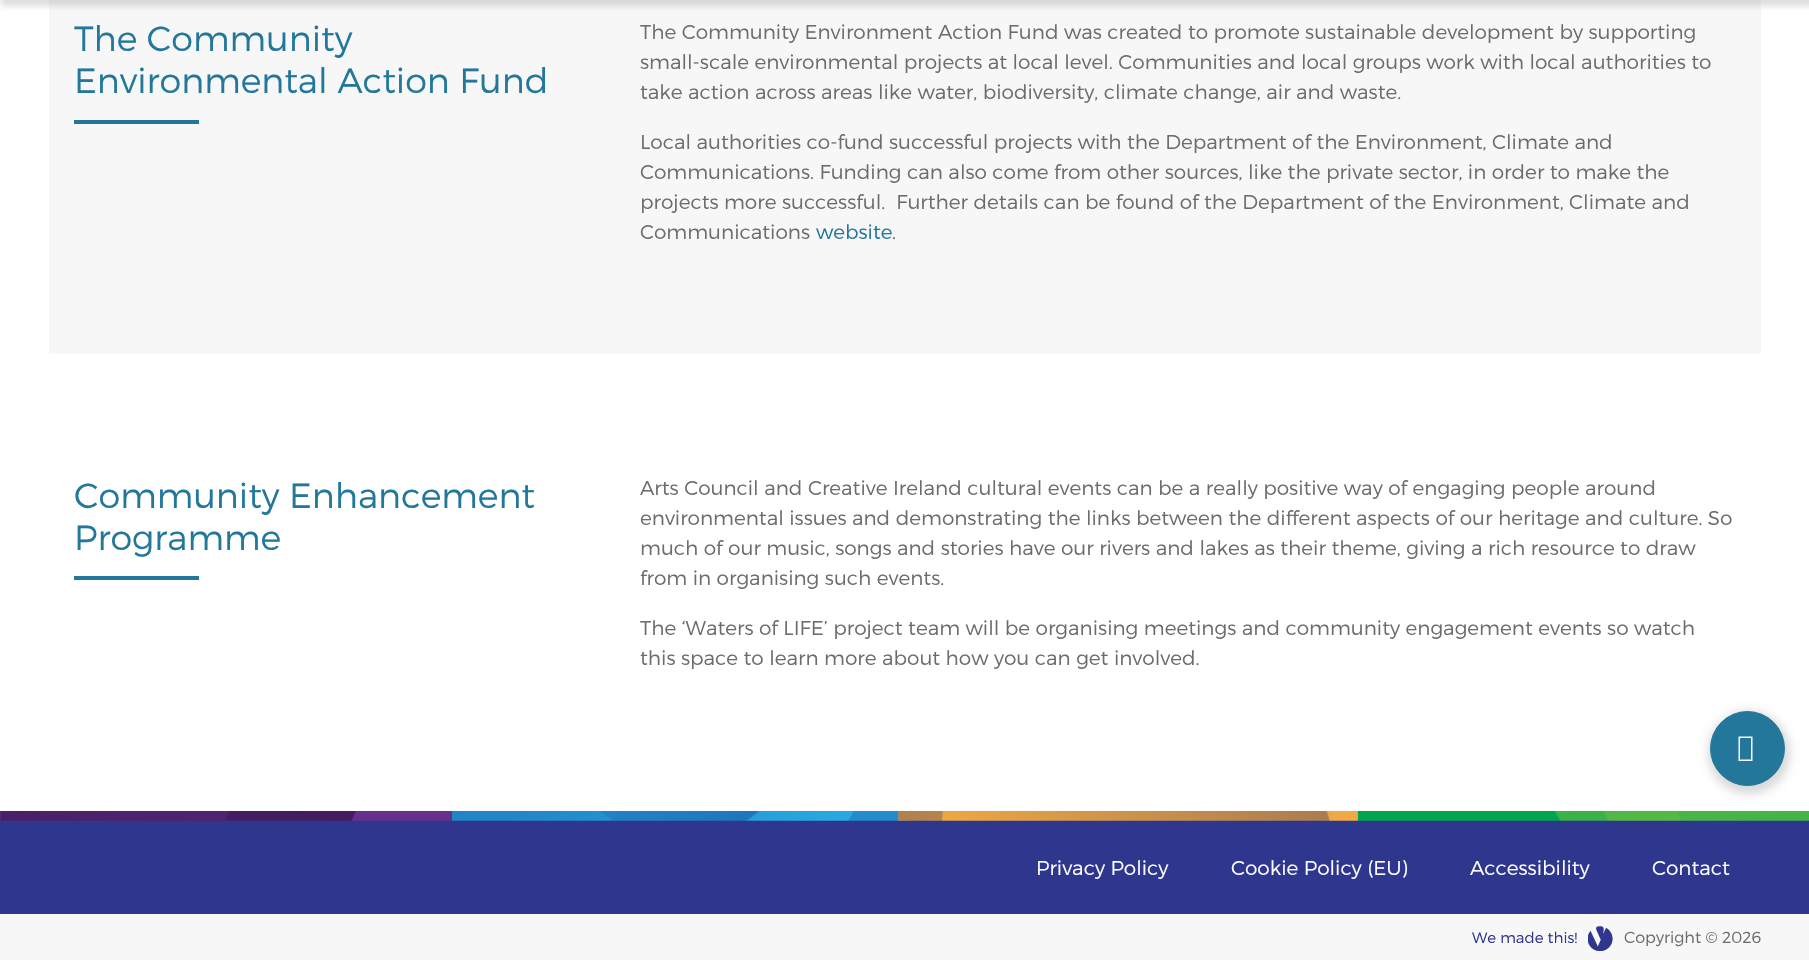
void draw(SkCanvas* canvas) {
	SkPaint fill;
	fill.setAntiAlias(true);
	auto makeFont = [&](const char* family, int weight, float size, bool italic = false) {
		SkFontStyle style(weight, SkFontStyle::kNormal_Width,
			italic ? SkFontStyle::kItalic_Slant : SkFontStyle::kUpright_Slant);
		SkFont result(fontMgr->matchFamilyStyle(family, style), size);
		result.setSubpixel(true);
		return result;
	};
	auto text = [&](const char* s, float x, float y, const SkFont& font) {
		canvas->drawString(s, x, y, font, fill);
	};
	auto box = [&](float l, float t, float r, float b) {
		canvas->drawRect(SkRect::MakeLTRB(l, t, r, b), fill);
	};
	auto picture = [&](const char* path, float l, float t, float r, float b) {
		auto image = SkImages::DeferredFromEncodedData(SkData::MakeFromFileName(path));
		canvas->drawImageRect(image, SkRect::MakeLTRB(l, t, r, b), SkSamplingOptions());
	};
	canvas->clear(0xFFFFFFFF);
	fill.setColor(0xFFF7F7F7);
	box(49, 0, 1761, 354);
	fill.setColor(0x33555555);
	fill.setMaskFilter(SkMaskFilter::MakeBlur(kNormal_SkBlurStyle, 3));
	canvas->drawRect(SkRect::MakeLTRB(1, -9, 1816, 6), fill);
	fill.setMaskFilter(nullptr);
	fill.setColor(0xFF22779B);
	box(74, 120, 199, 124);
	box(74, 576, 199, 580);
	fill.setColor(0x26000000);
	fill.setMaskFilter(SkMaskFilter::MakeBlur(kNormal_SkBlurStyle, 5));
	canvas->drawRoundRect(SkRect::MakeLTRB(1708, 711, 1790, 794), 41, 41, fill);
	fill.setMaskFilter(nullptr);
	fill.setColor(0xFF22779B);
	canvas->drawCircle(1747.5f, 748.5f, 37, fill);
	fill.setStyle(SkPaint::kStroke_Style);
	fill.setStrokeWidth(1);
	canvas->drawCircle(1747.5f, 748.5f, 37, fill);
	fill.setStyle(SkPaint::kFill_Style);
	fill.setColor(0xFFFFFFFF);
	canvas->drawPath(SkPathBuilder().moveTo(1738.5f, 761).lineTo(1738.5f, 736.5f).lineTo(1752.5f, 736.5f).lineTo(1752.5f, 761).close().moveTo(1740, 759.5f).lineTo(1751, 759.5f).lineTo(1751, 738).lineTo(1740, 738).close().detach(), fill);
	fill.setColor(0xFF2E368E);
	box(0, 811, 1809, 914);
	picture("image0.png", 0, 810, 1809, 821);
	fill.setColor(0xFFF7F7F7);
	box(0, 914, 1809, 960);
	picture("image1.png", 1588, 926, 1613, 951);
	auto font1 = makeFont("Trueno", 300, 35);
	fill.setColor(0xFF22779B);
	text("The Community", 74, 51, font1);
	text("Environmental Action Fund", 74, 93, font1);
	auto font2 = makeFont("Trueno", 300, 20);
	fill.setColor(0xFF6C6C6C);
	text("The Community Environment Action Fund was created to promote sustainable development by supporting", 640, 39, font2);
	text("small-scale environmental projects at local level. Communities and local groups work with local authorities to", 640, 69, font2);
	text("take action across areas like water, biodiversity, climate change, air and waste.", 640, 99, font2);
	text("Local authorities co-fund successful projects with the Department of the Environment, Climate and", 640, 149, font2);
	text("Communications. Funding can also come from other sources, like the private sector, in order to make the", 640, 179, font2);
	text("projects more successful.  Further details can be found of the Department of the Environment, Climate and", 640, 209, font2);
	text("Communications", 640, 239, font2);
	fill.setColor(0xFF22779B);
	text("website", 816, 239, font2);
	fill.setColor(0xFF6C6C6C);
	text(".", 892, 239, font2);
	fill.setColor(0xFF22779B);
	text("Community Enhancement", 74, 508, font1);
	text("Programme", 74, 550, font1);
	fill.setColor(0xFF6C6C6C);
	text("Arts Council and Creative Ireland cultural events can be a really positive way of engaging people around", 640, 495, font2);
	text("environmental issues and demonstrating the links between the different aspects of our heritage and culture. So", 640, 525, font2);
	text("much of our music, songs and stories have our rivers and lakes as their theme, giving a rich resource to draw", 640, 555, font2);
	text("from in organising such events.", 640, 585, font2);
	text("The ‘Waters of LIFE’ project team will be organising meetings and community engagement events so watch", 640, 635, font2);
	text("this space to learn more about how you can get involved.", 640, 665, font2);
	fill.setColor(0xFFFFFFFF);
	text("Privacy Policy", 1036, 875, font2);
	text("Cookie Policy (EU)", 1231, 875, font2);
	text("Accessibility", 1470, 875, font2);
	text("Contact", 1652, 875, font2);
	auto font3 = makeFont("Trueno", 300, 15);
	fill.setColor(0xFF2E368E);
	text("We made this!", 1472, 943, font3);
	auto font4 = makeFont("Trueno", 300, 16);
	fill.setColor(0xFF6C6C6C);
	text("Copyright © 2026", 1624, 943, font4);
}
